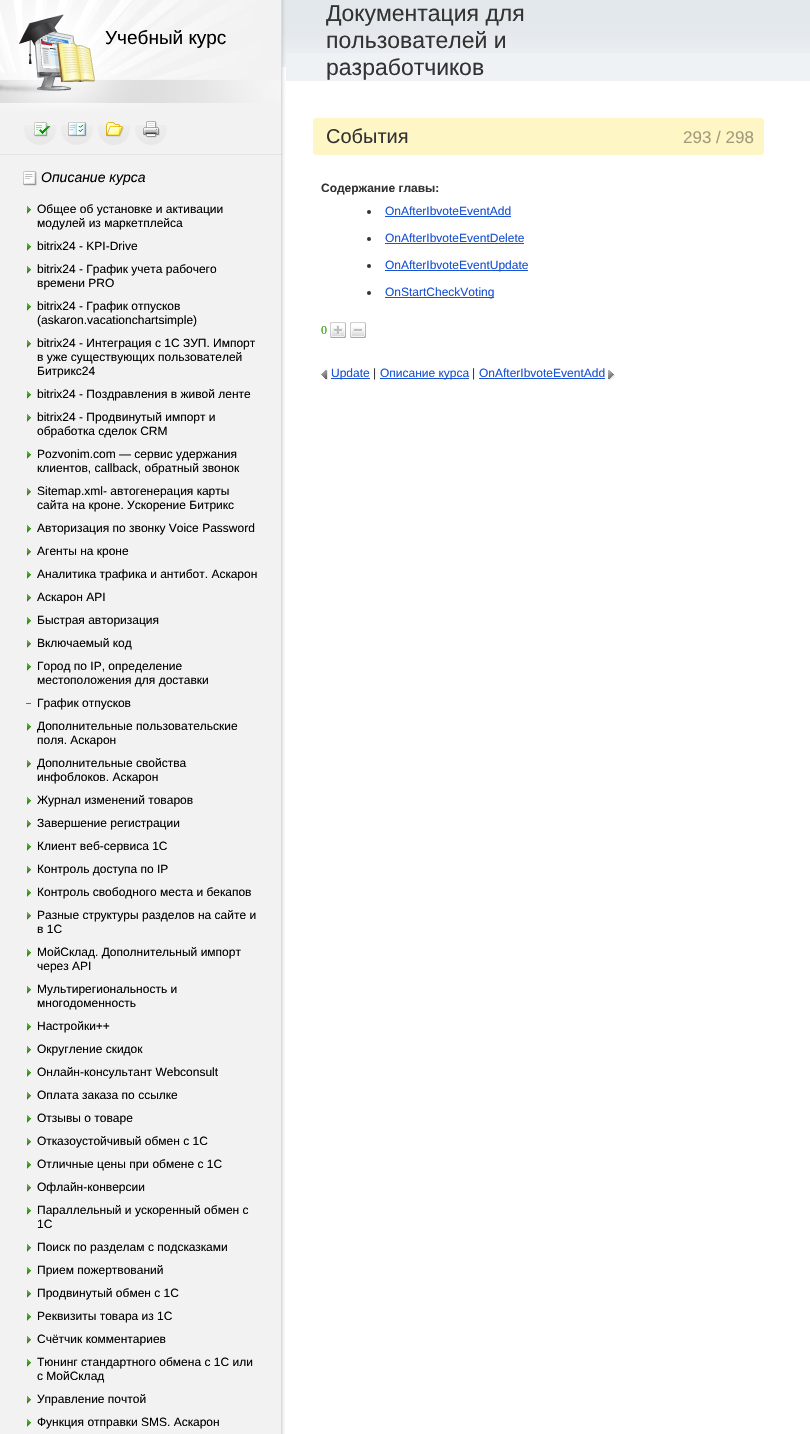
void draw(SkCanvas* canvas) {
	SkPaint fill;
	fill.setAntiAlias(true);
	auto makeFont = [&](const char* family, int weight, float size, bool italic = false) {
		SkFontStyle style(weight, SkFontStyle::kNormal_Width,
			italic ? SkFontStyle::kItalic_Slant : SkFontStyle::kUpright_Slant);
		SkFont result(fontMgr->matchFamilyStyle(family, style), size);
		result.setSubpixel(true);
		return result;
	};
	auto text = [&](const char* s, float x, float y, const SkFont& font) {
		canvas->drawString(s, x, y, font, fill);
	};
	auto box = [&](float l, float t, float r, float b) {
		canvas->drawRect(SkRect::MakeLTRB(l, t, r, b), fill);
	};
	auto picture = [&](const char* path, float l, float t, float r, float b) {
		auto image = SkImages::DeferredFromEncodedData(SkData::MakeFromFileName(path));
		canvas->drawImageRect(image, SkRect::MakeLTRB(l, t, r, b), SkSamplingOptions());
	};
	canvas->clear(0xFFFFFFFF);
	picture("image0.png", 0, 0, 286, 155);
	picture("image1.png", 24, 125, 56, 145);
	picture("image2.png", 34, 122, 51, 137);
	picture("image1.png", 61, 125, 93, 145);
	picture("image3.png", 67, 122, 87, 137);
	picture("image1.png", 98, 125, 130, 145);
	picture("image4.png", 106, 122, 124, 137);
	picture("image1.png", 135, 125, 167, 145);
	picture("image5.png", 143, 121, 160, 138);
	fill.setColor(0xFFEFF2F4);
	box(286, 53, 810, 81);
	picture("image6.png", 286, 0, 810, 53);
	fill.setColor(0xFFFFF6C6);
	box(314, 118, 763, 119);
	fill.setColor(0xFFFFFAE1);
	box(762, 118, 763, 119);
	box(314, 118, 315, 119);
	fill.setColor(0xFFFFF6C6);
	box(313, 119, 764, 154);
	fill.setColor(0xFFFFFAE1);
	box(763, 119, 764, 120);
	box(313, 119, 314, 120);
	box(763, 153, 764, 154);
	box(313, 153, 314, 154);
	fill.setColor(0xFFFFF6C6);
	box(314, 154, 763, 155);
	fill.setColor(0xFFFFFAE1);
	box(762, 154, 763, 155);
	box(314, 154, 315, 155);
	picture("image7.png", 0, 155, 285, 1434);
	picture("image8.png", 23, 171, 37, 186);
	picture("image9.png", 27, 206, 31, 214);
	picture("image9.png", 27, 243, 31, 251);
	picture("image9.png", 27, 266, 31, 274);
	picture("image9.png", 27, 303, 31, 311);
	picture("image9.png", 27, 340, 31, 348);
	picture("image9.png", 27, 391, 31, 399);
	picture("image9.png", 27, 414, 31, 422);
	picture("image9.png", 27, 451, 31, 459);
	picture("image9.png", 27, 488, 31, 496);
	picture("image9.png", 27, 525, 31, 533);
	picture("image9.png", 27, 548, 31, 556);
	picture("image9.png", 27, 571, 31, 579);
	picture("image9.png", 27, 594, 31, 602);
	picture("image9.png", 27, 617, 31, 625);
	picture("image9.png", 27, 640, 31, 648);
	picture("image9.png", 27, 663, 31, 671);
	fill.setColor(0xFF3D8F1E);
	box(26, 703, 31, 704);
	picture("image9.png", 27, 723, 31, 731);
	picture("image9.png", 27, 760, 31, 768);
	picture("image9.png", 27, 797, 31, 805);
	picture("image9.png", 27, 820, 31, 828);
	picture("image9.png", 27, 843, 31, 851);
	picture("image9.png", 27, 866, 31, 874);
	picture("image9.png", 27, 889, 31, 897);
	picture("image9.png", 27, 912, 31, 920);
	picture("image9.png", 27, 949, 31, 957);
	picture("image9.png", 27, 986, 31, 994);
	picture("image9.png", 27, 1023, 31, 1031);
	picture("image9.png", 27, 1046, 31, 1054);
	picture("image9.png", 27, 1069, 31, 1077);
	picture("image9.png", 27, 1092, 31, 1100);
	picture("image9.png", 27, 1115, 31, 1123);
	picture("image9.png", 27, 1138, 31, 1146);
	picture("image9.png", 27, 1161, 31, 1169);
	picture("image9.png", 27, 1184, 31, 1192);
	picture("image9.png", 27, 1207, 31, 1215);
	picture("image9.png", 27, 1244, 31, 1252);
	picture("image9.png", 27, 1267, 31, 1275);
	picture("image9.png", 27, 1290, 31, 1298);
	picture("image9.png", 27, 1313, 31, 1321);
	picture("image9.png", 27, 1336, 31, 1344);
	picture("image9.png", 27, 1359, 31, 1367);
	picture("image9.png", 27, 1396, 31, 1404);
	picture("image9.png", 27, 1419, 31, 1427);
	fill.setColor(0xFF333333);
	canvas->drawCircle(369, 212, 2, fill);
	fill.setColor(0xFF1952D3);
	box(385, 216, 511, 217);
	fill.setColor(0xFF333333);
	canvas->drawCircle(369, 239, 2, fill);
	fill.setColor(0xFF1952D3);
	box(385, 243, 524, 244);
	fill.setColor(0xFF333333);
	canvas->drawCircle(369, 266, 2, fill);
	fill.setColor(0xFF1952D3);
	box(385, 270, 528, 271);
	fill.setColor(0xFF333333);
	canvas->drawCircle(369, 293, 2, fill);
	fill.setColor(0xFF1952D3);
	box(385, 297, 494, 298);
	picture("image10.png", 330, 322, 346, 338);
	picture("image11.png", 350, 322, 366, 338);
	picture("image12.png", 321, 370, 328, 380);
	box(331, 378, 370, 379);
	box(380, 378, 469, 379);
	box(479, 378, 605, 379);
	picture("image13.png", 608, 370, 615, 380);
	auto font1 = makeFont("Liberation Sans", 400, 19);
	fill.setColor(0xFF000000);
	text("Учебный курс", 105, 44, font1);
	auto font2 = makeFont("Liberation Sans", 400, 23);
	fill.setColor(0xFF333333);
	text("Документация для", 326, 21, font2);
	text("пользователей и", 326, 48, font2);
	text("разработчиков", 326, 75, font2);
	auto font3 = makeFont("Liberation Sans", 400, 20);
	text("События", 326, 143, font3);
	auto font4 = makeFont("Liberation Sans", 400, 17);
	fill.setColor(0xFFA19B7D);
	text("293 / 298", 683, 143, font4);
	auto font5 = makeFont("Liberation Sans", 400, 14, true);
	fill.setColor(0xFF000000);
	text("Описание курса", 41, 182, font5);
	auto font6 = makeFont("Liberation Sans", 400, 12);
	text("Общее об установке и активации", 37, 213, font6);
	text("модулей из маркетплейса", 37, 227, font6);
	text("bitrix24 - KPI-Drive", 37, 250, font6);
	text("bitrix24 - График учета рабочего", 37, 273, font6);
	text("времени PRO", 37, 287, font6);
	text("bitrix24 - График отпусков", 37, 310, font6);
	text("(askaron.vacationchartsimple)", 37, 324, font6);
	text("bitrix24 - Интеграция c 1С ЗУП. Импорт", 37, 347, font6);
	text("в уже существующих пользователей", 37, 361, font6);
	text("Битрикс24", 37, 375, font6);
	text("bitrix24 - Поздравления в живой ленте", 37, 398, font6);
	text("bitrix24 - Продвинутый импорт и", 37, 421, font6);
	text("обработка сделок CRM", 37, 435, font6);
	text("Pozvonim.com — сервис удержания", 37, 458, font6);
	text("клиентов, callback, обратный звонок", 37, 472, font6);
	text("Sitemap.xml- автогенерация карты", 37, 495, font6);
	text("сайта на кроне. Ускорение Битрикс", 37, 509, font6);
	text("Авторизация по звонку Voice Password", 37, 532, font6);
	text("Агенты на кроне", 37, 555, font6);
	text("Аналитика трафика и антибот. Аскарон", 37, 578, font6);
	text("Аскарон API", 37, 601, font6);
	text("Быстрая авторизация", 37, 624, font6);
	text("Включаемый код", 37, 647, font6);
	text("Город по IP, определение", 37, 670, font6);
	text("местоположения для доставки", 37, 684, font6);
	text("График отпусков", 37, 707, font6);
	text("Дополнительные пользовательские", 37, 730, font6);
	text("поля. Аскарон", 37, 744, font6);
	text("Дополнительные свойства", 37, 767, font6);
	text("инфоблоков. Аскарон", 37, 781, font6);
	text("Журнал изменений товаров", 37, 804, font6);
	text("Завершение регистрации", 37, 827, font6);
	text("Клиент веб-сервиса 1С", 37, 850, font6);
	text("Контроль доступа по IP", 37, 873, font6);
	text("Контроль свободного места и бекапов", 37, 896, font6);
	text("Разные структуры разделов на сайте и", 37, 919, font6);
	text("в 1С", 37, 933, font6);
	text("МойСклад. Дополнительный импорт", 37, 956, font6);
	text("через API", 37, 970, font6);
	text("Мультирегиональность и", 37, 993, font6);
	text("многодоменность", 37, 1007, font6);
	text("Настройки++", 37, 1030, font6);
	text("Округление скидок", 37, 1053, font6);
	text("Онлайн-консультант Webconsult", 37, 1076, font6);
	text("Оплата заказа по ссылке", 37, 1099, font6);
	text("Отзывы о товаре", 37, 1122, font6);
	text("Отказоустойчивый обмен с 1С", 37, 1145, font6);
	text("Отличные цены при обмене с 1С", 37, 1168, font6);
	text("Офлайн-конверсии", 37, 1191, font6);
	text("Параллельный и ускоренный обмен с", 37, 1214, font6);
	text("1С", 37, 1228, font6);
	text("Поиск по разделам с подсказками", 37, 1251, font6);
	text("Прием пожертвований", 37, 1274, font6);
	text("Продвинутый обмен с 1С", 37, 1297, font6);
	text("Реквизиты товара из 1С", 37, 1320, font6);
	text("Счётчик комментариев", 37, 1343, font6);
	text("Тюнинг стандартного обмена с 1С или", 37, 1366, font6);
	text("с МойСклад", 37, 1380, font6);
	text("Управление почтой", 37, 1403, font6);
	text("Функция отправки SMS. Аскарон", 37, 1426, font6);
	auto font7 = makeFont("Liberation Sans", 700, 12);
	fill.setColor(0xFF333333);
	text("Содержание главы:", 321, 192, font7);
	fill.setColor(0xFF1952D3);
	text("OnAfterIbvoteEventAdd", 385, 215, font6);
	text("OnAfterIbvoteEventDelete", 385, 242, font6);
	text("OnAfterIbvoteEventUpdate", 385, 269, font6);
	text("OnStartCheckVoting", 385, 296, font6);
	auto font8 = makeFont("Liberation Serif", 400, 12);
	fill.setColor(0xFF289B00);
	text("0", 321, 334, font8);
	fill.setColor(0xFF1952D3);
	text("Update", 331, 377, font6);
	fill.setColor(0xFF333333);
	text("|", 373, 377, font6);
	fill.setColor(0xFF1952D3);
	text("Описание курса", 380, 377, font6);
	fill.setColor(0xFF333333);
	text("|", 472, 377, font6);
	fill.setColor(0xFF1952D3);
	text("OnAfterIbvoteEventAdd", 479, 377, font6);
}
